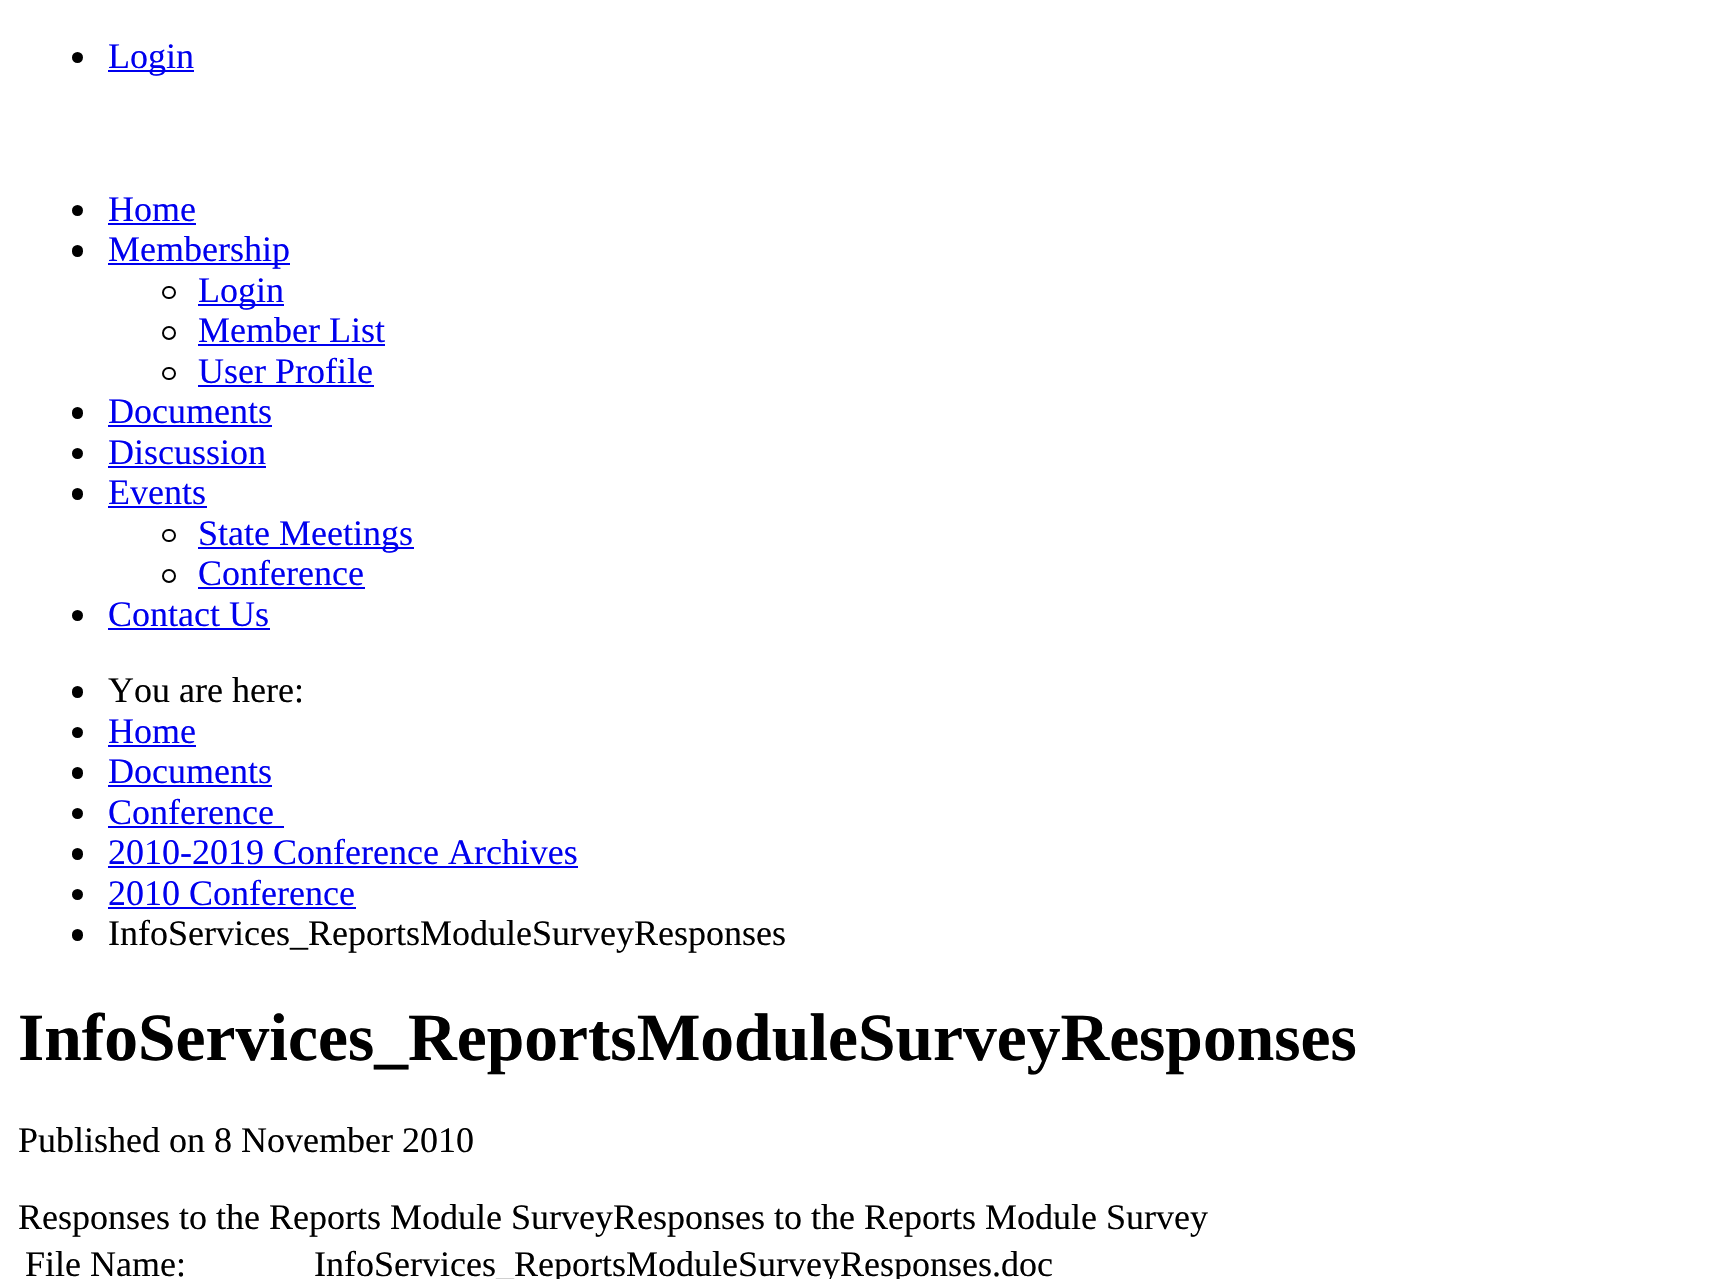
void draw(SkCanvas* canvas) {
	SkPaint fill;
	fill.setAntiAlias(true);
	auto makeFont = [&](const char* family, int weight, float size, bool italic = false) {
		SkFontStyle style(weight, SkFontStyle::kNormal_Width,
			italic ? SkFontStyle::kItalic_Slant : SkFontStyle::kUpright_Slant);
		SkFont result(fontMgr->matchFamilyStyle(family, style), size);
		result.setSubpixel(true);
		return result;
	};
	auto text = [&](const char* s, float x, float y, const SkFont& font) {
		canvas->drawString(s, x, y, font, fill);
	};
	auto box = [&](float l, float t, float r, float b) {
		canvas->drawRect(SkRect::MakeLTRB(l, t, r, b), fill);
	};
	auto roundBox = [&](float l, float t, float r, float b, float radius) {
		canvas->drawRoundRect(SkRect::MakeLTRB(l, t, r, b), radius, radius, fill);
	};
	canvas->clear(0xFFFFFFFF);
	fill.setColor(0xFF000000);
	canvas->drawCircle(77.5f, 57.5f, 5.5f, fill);
	fill.setColor(0xFF0000EE);
	box(108, 70, 194, 72);
	fill.setColor(0xFF000000);
	canvas->drawCircle(77.5f, 210.5f, 5.5f, fill);
	fill.setColor(0xFF0000EE);
	box(108, 223, 196, 225);
	fill.setColor(0xFF000000);
	roundBox(72, 245, 83, 257, 5.5f);
	fill.setColor(0xFF0000EE);
	box(108, 263, 290, 265);
	fill.setStyle(SkPaint::kStroke_Style);
	fill.setStrokeWidth(2);
	fill.setColor(0xFF000000);
	canvas->drawRoundRect(SkRect::MakeLTRB(163, 287, 175, 298), 5.5f, 5.5f, fill);
	fill.setStyle(SkPaint::kFill_Style);
	fill.setColor(0xFF0000EE);
	box(198, 304, 284, 306);
	fill.setStyle(SkPaint::kStroke_Style);
	fill.setColor(0xFF000000);
	canvas->drawCircle(169, 333, 6, fill);
	fill.setStyle(SkPaint::kFill_Style);
	fill.setColor(0xFF0000EE);
	box(198, 344, 385, 346);
	fill.setStyle(SkPaint::kStroke_Style);
	fill.setColor(0xFF000000);
	canvas->drawRoundRect(SkRect::MakeLTRB(163, 368, 175, 379), 5.5f, 5.5f, fill);
	fill.setStyle(SkPaint::kFill_Style);
	fill.setColor(0xFF0000EE);
	box(198, 385, 374, 387);
	fill.setColor(0xFF000000);
	roundBox(72, 407, 83, 419, 5.5f);
	fill.setColor(0xFF0000EE);
	box(108, 425, 272, 427);
	fill.setColor(0xFF000000);
	canvas->drawCircle(77.5f, 453.5f, 5.5f, fill);
	fill.setColor(0xFF0000EE);
	box(108, 466, 266, 468);
	fill.setColor(0xFF000000);
	roundBox(72, 488, 83, 500, 5.5f);
	fill.setColor(0xFF0000EE);
	box(108, 506, 207, 508);
	fill.setStyle(SkPaint::kStroke_Style);
	fill.setColor(0xFF000000);
	canvas->drawRoundRect(SkRect::MakeLTRB(163, 530, 175, 541), 5.5f, 5.5f, fill);
	fill.setStyle(SkPaint::kFill_Style);
	fill.setColor(0xFF0000EE);
	box(198, 547, 414, 549);
	fill.setStyle(SkPaint::kStroke_Style);
	fill.setColor(0xFF000000);
	canvas->drawCircle(169, 576, 6, fill);
	fill.setStyle(SkPaint::kFill_Style);
	fill.setColor(0xFF0000EE);
	box(198, 587, 365, 589);
	fill.setColor(0xFF000000);
	canvas->drawCircle(77.5f, 615.5f, 5.5f, fill);
	fill.setColor(0xFF0000EE);
	box(108, 628, 270, 630);
	fill.setColor(0xFF000000);
	roundBox(72, 686, 83, 698, 5.5f);
	canvas->drawCircle(77.5f, 732.5f, 5.5f, fill);
	fill.setColor(0xFF0000EE);
	box(108, 745, 196, 747);
	fill.setColor(0xFF000000);
	roundBox(72, 767, 83, 779, 5.5f);
	fill.setColor(0xFF0000EE);
	box(108, 785, 272, 787);
	fill.setColor(0xFF000000);
	canvas->drawCircle(77.5f, 813.5f, 5.5f, fill);
	fill.setColor(0xFF0000EE);
	box(108, 826, 284, 828);
	fill.setColor(0xFF000000);
	roundBox(72, 848, 83, 860, 5.5f);
	fill.setColor(0xFF0000EE);
	box(108, 866, 578, 868);
	fill.setColor(0xFF000000);
	canvas->drawCircle(77.5f, 894.5f, 5.5f, fill);
	fill.setColor(0xFF0000EE);
	box(108, 907, 356, 909);
	fill.setColor(0xFF000000);
	roundBox(72, 929, 83, 941, 5.5f);
	auto font1 = makeFont("Liberation Serif", 400, 36);
	fill.setColor(0xFF0000EE);
	text("Login", 108, 68, font1);
	text("Home", 108, 221, font1);
	text("Membership", 108, 261, font1);
	text("Login", 198, 302, font1);
	text("Member List", 198, 342, font1);
	text("User Profile", 198, 383, font1);
	text("Documents", 108, 423, font1);
	text("Discussion", 108, 464, font1);
	text("Events", 108, 504, font1);
	text("State Meetings", 198, 545, font1);
	text("Conference", 198, 585, font1);
	text("Contact Us", 108, 626, font1);
	fill.setColor(0xFF000000);
	text("You are here:", 108, 702, font1);
	fill.setColor(0xFF0000EE);
	text("Home", 108, 743, font1);
	text("Documents", 108, 783, font1);
	text("Conference", 108, 824, font1);
	text("2010-2019 Conference Archives", 108, 864, font1);
	text("2010 Conference", 108, 905, font1);
	fill.setColor(0xFF000000);
	text("InfoServices_ReportsModuleSurveyResponses", 108, 945, font1);
	auto font2 = makeFont("Liberation Serif", 700, 67.5f);
	text("InfoServices_ReportsModuleSurveyResponses", 18, 1060, font2);
	text("Published on 8 November 2010", 18, 1152, font1);
	text("Responses to the Reports Module SurveyResponses to the Reports Module Survey", 18, 1229, font1);
	text("File Name:", 25, 1276, font1);
	text("InfoServices_ReportsModuleSurveyResponses.doc", 314, 1276, font1);
}
